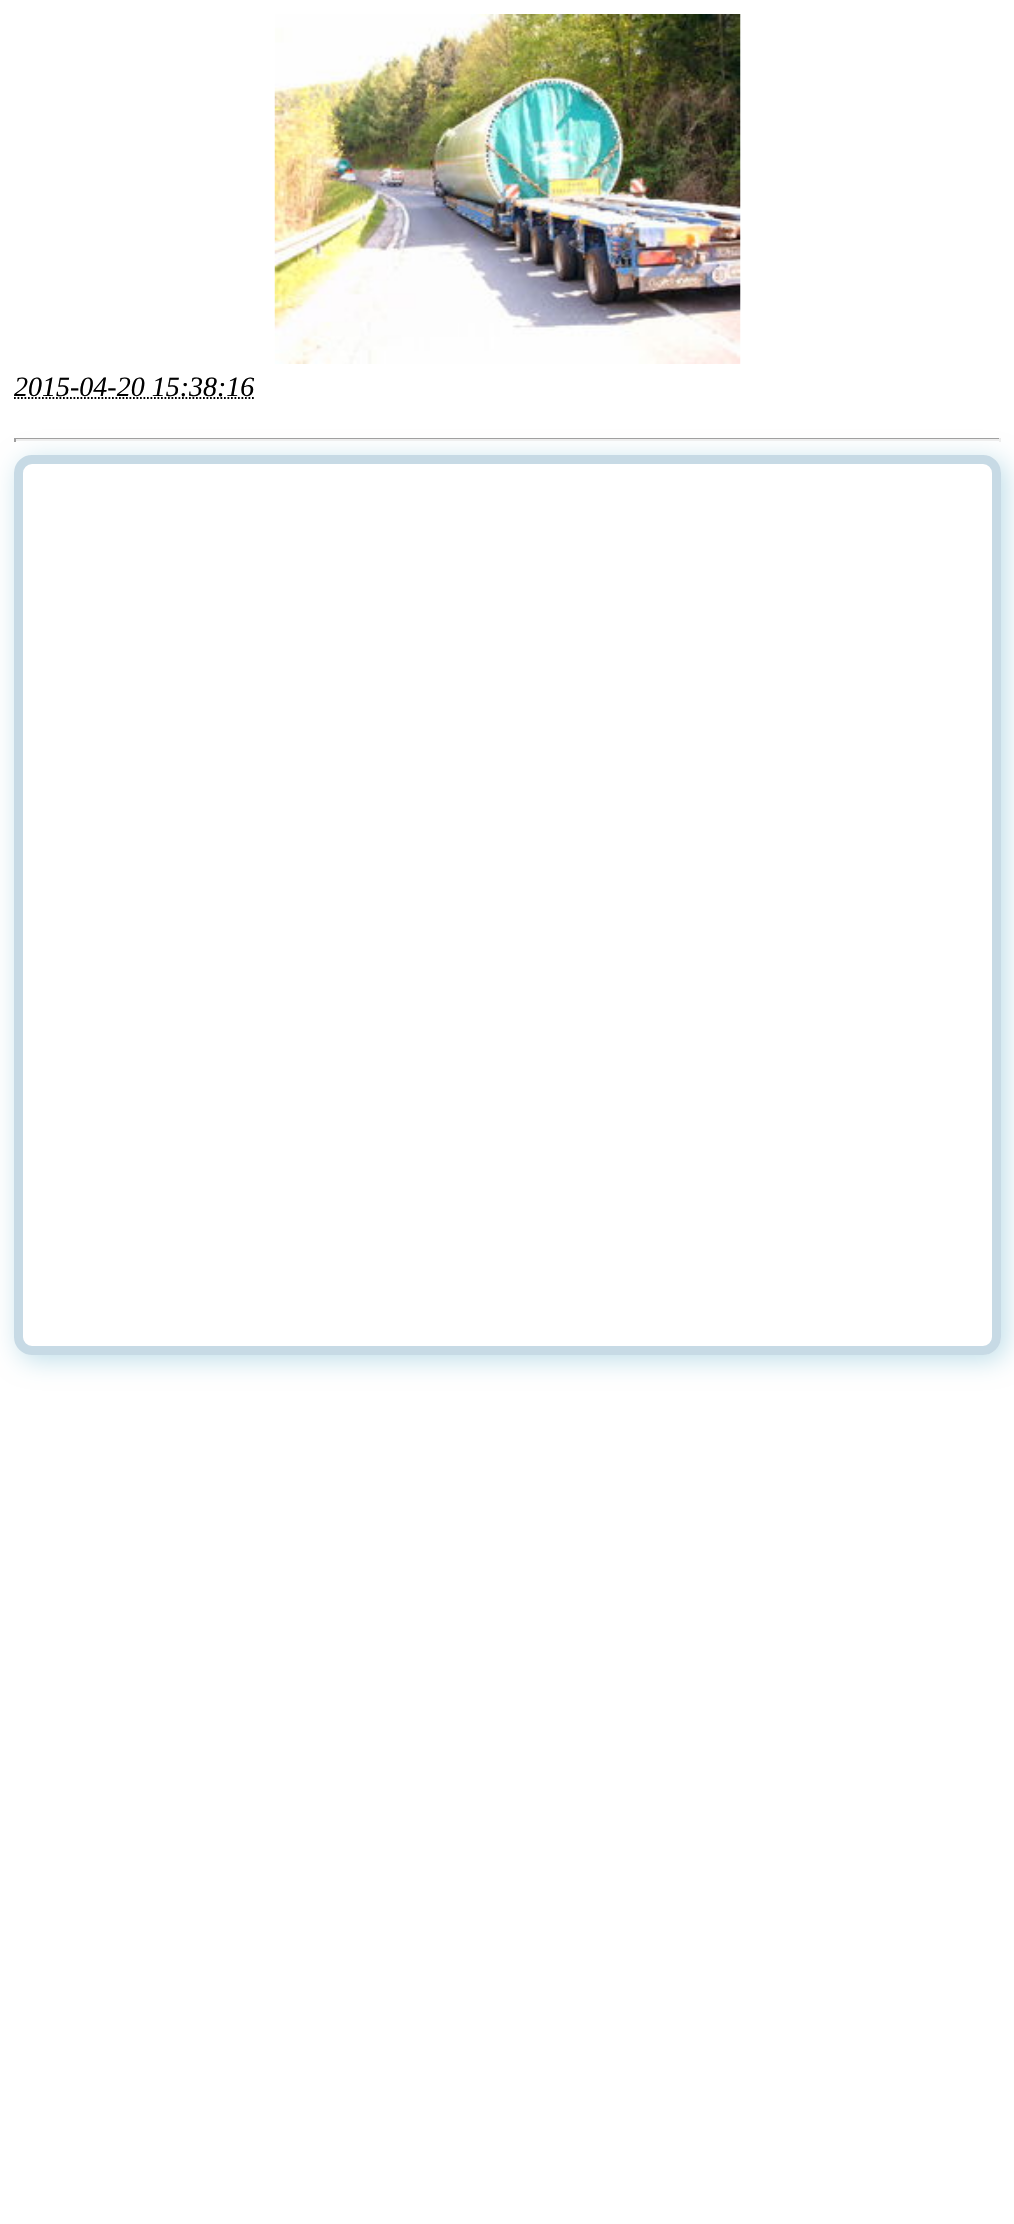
void draw(SkCanvas* canvas) {
	SkPaint fill;
	fill.setAntiAlias(true);
	auto makeFont = [&](const char* family, int weight, float size, bool italic = false) {
		SkFontStyle style(weight, SkFontStyle::kNormal_Width,
			italic ? SkFontStyle::kItalic_Slant : SkFontStyle::kUpright_Slant);
		SkFont result(fontMgr->matchFamilyStyle(family, style), size);
		result.setSubpixel(true);
		return result;
	};
	auto text = [&](const char* s, float x, float y, const SkFont& font) {
		canvas->drawString(s, x, y, font, fill);
	};
	auto box = [&](float l, float t, float r, float b) {
		canvas->drawRect(SkRect::MakeLTRB(l, t, r, b), fill);
	};
	auto picture = [&](const char* path, float l, float t, float r, float b) {
		auto image = SkImages::DeferredFromEncodedData(SkData::MakeFromFileName(path));
		canvas->drawImageRect(image, SkRect::MakeLTRB(l, t, r, b), SkSamplingOptions());
	};
	canvas->clear(0xFFFFFFFF);
	picture("image0.png", 274, 14, 741, 364);
	fill.setStyle(SkPaint::kStroke_Style);
	fill.setStrokeWidth(1.8f);
	fill.setColor(0xFF000000);
	fill.setPathEffect(SkDashPathEffect::Make({{1.75f, 1.75f}}, 0));
	canvas->drawPath(SkPathBuilder().moveTo(14, 398).lineTo(254.5f, 398).detach(), fill);
	fill.setPathEffect(nullptr);
	canvas->save();
	canvas->clipPath(SkPathBuilder(SkPathFillType::kEvenOdd).moveTo(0, 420).lineTo(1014, 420).lineTo(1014, 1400).lineTo(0, 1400).close().moveTo(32, 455).lineTo(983, 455).cubicTo(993, 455, 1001, 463, 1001, 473).lineTo(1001, 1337).cubicTo(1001, 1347, 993, 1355, 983, 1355).lineTo(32, 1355).cubicTo(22, 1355, 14, 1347, 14, 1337).lineTo(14, 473).cubicTo(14, 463, 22, 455, 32, 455).close().detach(), true);
	fill.setStyle(SkPaint::kFill_Style);
	fill.setColor(0xFFBFDFEA);
	fill.setMaskFilter(SkMaskFilter::MakeBlur(kNormal_SkBlurStyle, 13));
	canvas->drawRoundRect(SkRect::MakeLTRB(19, 460, 1006, 1360), 18, 18, fill);
	fill.setMaskFilter(nullptr);
	canvas->restore();
	fill.setStyle(SkPaint::kStroke_Style);
	fill.setStrokeWidth(9);
	fill.setColor(0xFFC7DAE5);
	canvas->drawRoundRect(SkRect::MakeLTRB(18.5f, 459.5f, 996.5f, 1350.5f), 13.5f, 13.5f, fill);
	fill.setStyle(SkPaint::kFill_Style);
	fill.setColor(0xFF9F9F9F);
	box(14, 438, 1001, 439);
	fill.setColor(0xFFEEEEEE);
	box(999, 438, 1001, 442);
	box(14, 439, 1001, 441);
	fill.setColor(0xFF9F9F9F);
	box(14, 438, 16, 442);
	auto font1 = makeFont("Liberation Serif", 400, 28, true);
	fill.setColor(0xFF000000);
	text("2015-04-20 15:38:16", 14, 396, font1);
}
